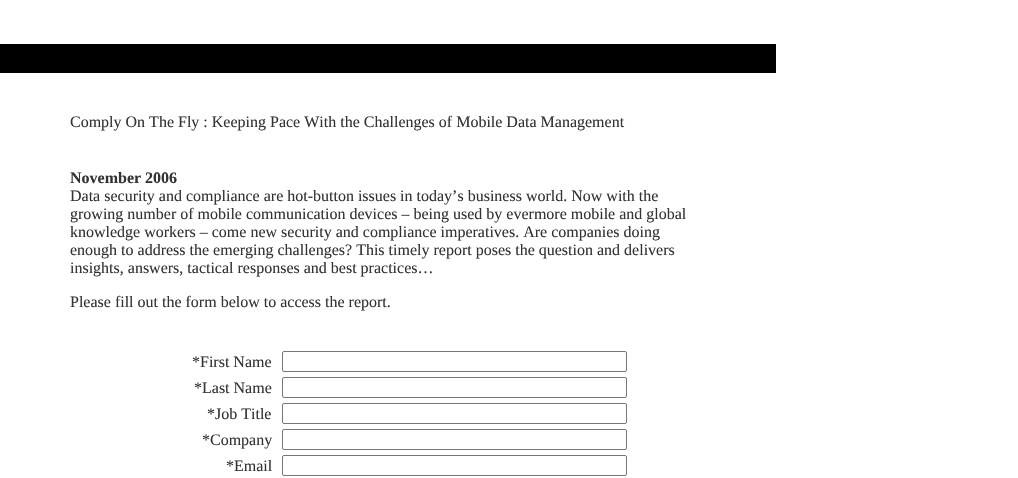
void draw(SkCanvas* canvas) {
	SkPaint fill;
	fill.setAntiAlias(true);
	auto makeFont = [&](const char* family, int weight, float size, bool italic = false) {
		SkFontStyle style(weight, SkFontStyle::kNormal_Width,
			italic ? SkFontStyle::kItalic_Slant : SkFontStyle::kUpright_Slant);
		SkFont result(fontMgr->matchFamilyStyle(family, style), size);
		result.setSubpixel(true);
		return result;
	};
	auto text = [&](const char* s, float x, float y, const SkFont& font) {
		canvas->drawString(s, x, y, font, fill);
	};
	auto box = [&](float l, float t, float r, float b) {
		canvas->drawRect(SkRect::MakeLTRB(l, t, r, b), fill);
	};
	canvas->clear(0xFFFFFFFF);
	fill.setColor(0xFF000000);
	box(0, 44, 776, 73);
	fill.setStyle(SkPaint::kStroke_Style);
	fill.setStrokeWidth(1);
	fill.setColor(0xFF767676);
	canvas->drawRoundRect(SkRect::MakeLTRB(282.5f, 351.5f, 626.5f, 371.5f), 1.5f, 1.5f, fill);
	canvas->drawRoundRect(SkRect::MakeLTRB(282.5f, 377.5f, 626.5f, 397.5f), 1.5f, 1.5f, fill);
	canvas->drawRoundRect(SkRect::MakeLTRB(282.5f, 403.5f, 626.5f, 423.5f), 1.5f, 1.5f, fill);
	canvas->drawRoundRect(SkRect::MakeLTRB(282.5f, 429.5f, 626.5f, 449.5f), 1.5f, 1.5f, fill);
	canvas->drawRoundRect(SkRect::MakeLTRB(282.5f, 455.5f, 626.5f, 475.5f), 1.5f, 1.5f, fill);
	auto font1 = makeFont("Liberation Serif", 400, 16);
	fill.setStyle(SkPaint::kFill_Style);
	fill.setColor(0xFF333333);
	text("Comply On The Fly : Keeping Pace With the Challenges of Mobile Data Management", 70, 127, font1);
	auto font2 = makeFont("Liberation Serif", 700, 16);
	text("November 2006", 70, 183, font2);
	text("Data security and compliance are hot-button issues in today’s business world. Now with the", 70, 201, font1);
	text("growing number of mobile communication devices – being used by evermore mobile and global", 70, 219, font1);
	text("knowledge workers – come new security and compliance imperatives. Are companies doing", 70, 237, font1);
	text("enough to address the emerging challenges? This timely report poses the question and delivers", 70, 255, font1);
	text("insights, answers, tactical responses and best practices…", 70, 273, font1);
	text("Please fill out the form below to access the report.", 70, 307, font1);
	text("*First Name", 192, 367, font1);
	text("*Last Name", 194, 393, font1);
	text("*Job Title", 207, 419, font1);
	text("*Company", 202, 445, font1);
	text("*Email", 226, 471, font1);
}
